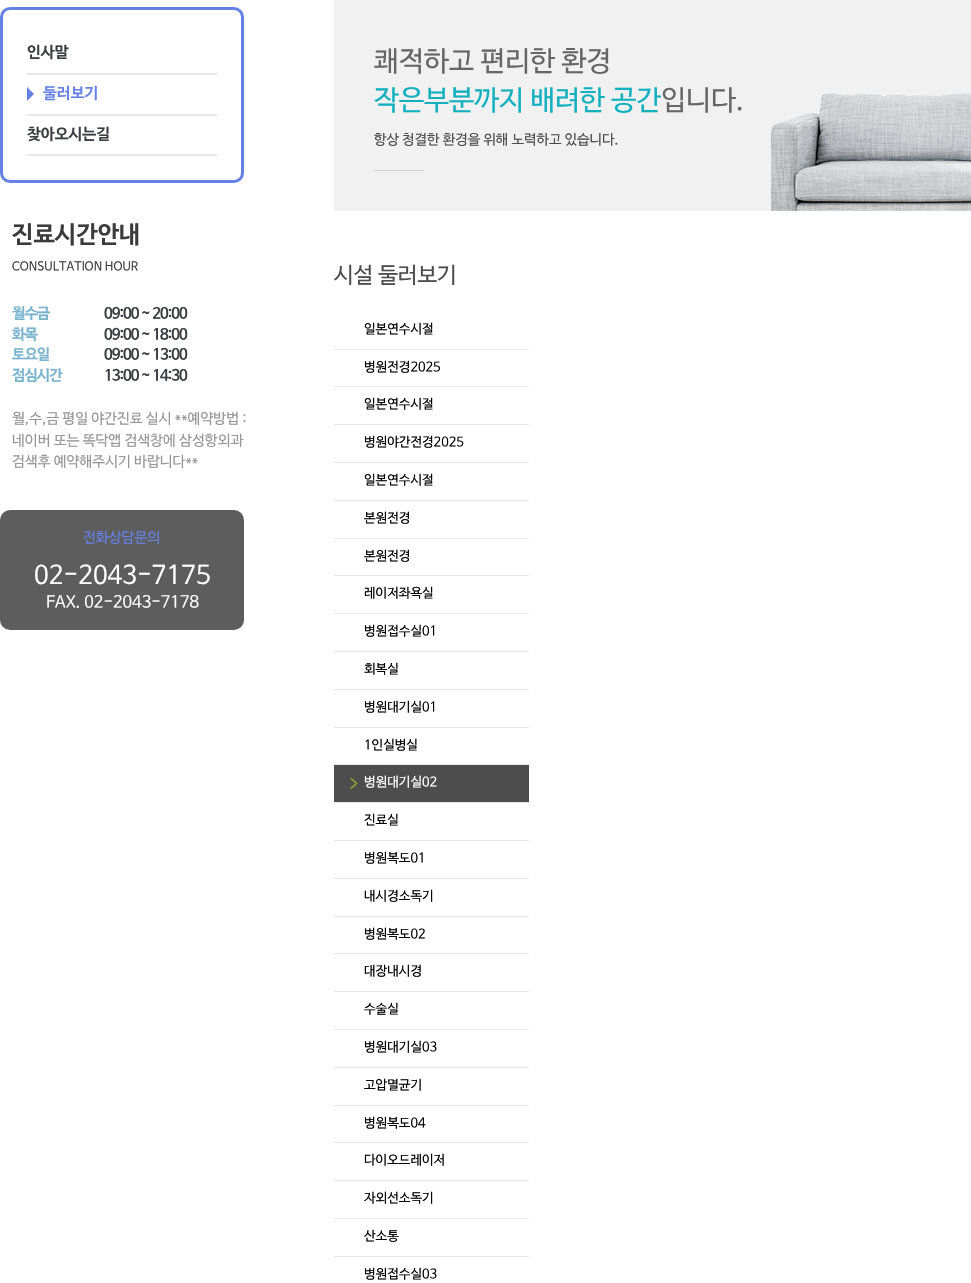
void draw(SkCanvas* canvas) {
	SkPaint fill;
	fill.setAntiAlias(true);
	auto makeFont = [&](const char* family, int weight, float size, bool italic = false) {
		SkFontStyle style(weight, SkFontStyle::kNormal_Width,
			italic ? SkFontStyle::kItalic_Slant : SkFontStyle::kUpright_Slant);
		SkFont result(fontMgr->matchFamilyStyle(family, style), size);
		result.setSubpixel(true);
		return result;
	};
	auto text = [&](const char* s, float x, float y, const SkFont& font) {
		canvas->drawString(s, x, y, font, fill);
	};
	auto spacedText = [&](const char* s, float x, float y, const SkFont& font, const SkPaint& ink, float letter, float word) {
		std::vector<SkGlyphID> glyphs(font.countText(s, strlen(s), SkTextEncoding::kUTF8));
		std::vector<float> xs(glyphs.size());
		font.textToGlyphs(s, strlen(s), SkTextEncoding::kUTF8, glyphs);
		font.getXPos(glyphs, xs, x);
		float extra = 0;
		for (size_t i = 0; i < glyphs.size(); i++) {
			xs[i] += extra;
			extra += letter + word * (glyphs[i] == font.unicharToGlyph(' '));
		}
		canvas->drawTextBlob(SkTextBlob::MakeFromPosHGlyphs(glyphs, xs, y, font), 0, 0, ink);
	};
	auto box = [&](float l, float t, float r, float b) {
		canvas->drawRect(SkRect::MakeLTRB(l, t, r, b), fill);
	};
	auto roundBox = [&](float l, float t, float r, float b, float radius) {
		canvas->drawRoundRect(SkRect::MakeLTRB(l, t, r, b), radius, radius, fill);
	};
	auto picture = [&](const char* path, float l, float t, float r, float b) {
		auto image = SkImages::DeferredFromEncodedData(SkData::MakeFromFileName(path));
		canvas->drawImageRect(image, SkRect::MakeLTRB(l, t, r, b), SkSamplingOptions());
	};
	canvas->clear(0xFFFFFFFF);
	fill.setStyle(SkPaint::kStroke_Style);
	fill.setStrokeWidth(3);
	fill.setColor(0xFF6681E5);
	canvas->drawRoundRect(SkRect::MakeLTRB(1.5f, 8.5f, 242.5f, 181.5f), 8.5f, 8.5f, fill);
	fill.setStyle(SkPaint::kFill_Style);
	fill.setColor(0xFFE9E9E9);
	box(27, 73, 217, 75);
	box(27, 114, 217, 116);
	fill.setColor(0xFF6681E5);
	canvas->drawPath(SkPathBuilder().moveTo(27, 101).lineTo(27, 87).lineTo(34, 94).close().detach(), fill);
	fill.setColor(0xFFE9E9E9);
	box(27, 154, 217, 156);
	fill.setColor(0xFF5D5D5D);
	roundBox(0, 510, 244, 630, 10);
	fill.setColor(0xFFF1F1F1);
	box(334, 0, 971, 211);
	picture("image0.png", 770, 92, 971, 211);
	fill.setColor(0xFFD1D1D1);
	box(374, 170, 424, 171);
	fill.setColor(0xFFE7E7E7);
	box(334, 349, 529, 350);
	box(334, 386, 529, 387);
	box(334, 424, 529, 425);
	box(334, 462, 529, 463);
	box(334, 500, 529, 501);
	box(334, 538, 529, 539);
	box(334, 575, 529, 576);
	box(334, 613, 529, 614);
	box(334, 651, 529, 652);
	box(334, 689, 529, 690);
	box(334, 727, 529, 728);
	box(334, 764, 529, 765);
	box(334, 802, 529, 803);
	fill.setColor(0xFF4D4D4D);
	box(334, 765, 529, 802);
	picture("image1.png", 350, 777, 358, 790);
	fill.setColor(0xFFE7E7E7);
	box(334, 840, 529, 841);
	box(334, 878, 529, 879);
	box(334, 916, 529, 917);
	box(334, 953, 529, 954);
	box(334, 991, 529, 992);
	box(334, 1029, 529, 1030);
	box(334, 1067, 529, 1068);
	box(334, 1105, 529, 1106);
	box(334, 1142, 529, 1143);
	box(334, 1180, 529, 1181);
	box(334, 1218, 529, 1219);
	box(334, 1256, 529, 1257);
	auto font1 = makeFont("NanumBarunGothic", 700, 15.5f);
	fill.setColor(0xFF3A3C41);
	text("인사말", 27, 57, font1);
	fill.setColor(0xFF6681E5);
	text("둘러보기", 43, 98, font1);
	fill.setColor(0xFF3A3C41);
	text("찾아오시는길", 27, 139, font1);
	auto font2 = makeFont("NanumBarunGothic", 700, 24);
	fill.setColor(0xFF3B3B3B);
	text("진료시간안내", 12, 242, font2);
	auto font3 = makeFont("NanumBarunGothic", 400, 12);
	text("CONSULTATION HOUR", 12, 270, font3);
	auto font4 = makeFont("NanumBarunGothic", 700, 15);
	fill.setColor(0xFF78B3CE);
	spacedText("월수금", 12, 318, font4, fill, -1, 0);
	fill.setColor(0xFF3A3C41);
	spacedText("09:00 ~ 20:00", 104, 318, font4, fill, -1, 0);
	fill.setColor(0xFF78B3CE);
	spacedText("화목", 12, 339, font4, fill, -1, 0);
	fill.setColor(0xFF3A3C41);
	spacedText("09:00 ~ 18:00", 104, 339, font4, fill, -1, 0);
	fill.setColor(0xFF78B3CE);
	spacedText("토요일", 12, 359, font4, fill, -1, 0);
	fill.setColor(0xFF3A3C41);
	spacedText("09:00 ~ 13:00", 104, 359, font4, fill, -1, 0);
	fill.setColor(0xFF78B3CE);
	spacedText("점심시간", 12, 380, font4, fill, -1, 0);
	fill.setColor(0xFF3A3C41);
	spacedText("13:00 ~ 14:30", 104, 380, font4, fill, -1, 0);
	auto font5 = makeFont("NanumBarunGothic", 400, 14.4f);
	fill.setColor(0xFF969696);
	text("월,수,금 평일 야간진료 실시 **예약방법 :", 12, 423, font5);
	text("네이버 또는 똑닥앱 검색창에 삼성항외과", 12, 445, font5);
	text("검색후 예약해주시기 바랍니다**", 12, 466, font5);
	fill.setColor(0xFF6681E5);
	text("전화상담문의", 83, 542, font5);
	auto font6 = makeFont("NanumBarunGothic", 400, 25.25f);
	fill.setColor(0xFFFFFFFF);
	text("02-2043-7175", 34, 583, font6);
	auto font7 = makeFont("NanumBarunGothic", 400, 16.4f);
	text("FAX. 02-2043-7178", 46, 607, font7);
	auto font8 = makeFont("NanumBarunGothic", 400, 28);
	fill.setColor(0xFF666666);
	text("쾌적하고 편리한 환경", 374, 70, font8);
	fill.setColor(0xFF12B0BE);
	text("작은부분까지 배려한 공간", 374, 109, font8);
	fill.setColor(0xFF666666);
	text("입니다.", 661, 109, font8);
	auto font9 = makeFont("NanumBarunGothic", 400, 14);
	fill.setColor(0xFF4C4C4C);
	text("항상 청결한 환경을 위해 노력하고 있습니다.", 374, 144, font9);
	auto font10 = makeFont("NanumBarunGothic", 400, 22);
	text("시설 둘러보기", 334, 282, font10);
	auto font11 = makeFont("NanumBarunGothic", 400, 13);
	fill.setColor(0xFF000000);
	text("일본연수시절", 364, 333, font11);
	text("병원전경2025", 364, 371, font11);
	text("일본연수시절", 364, 408, font11);
	text("병원야간전경2025", 364, 446, font11);
	text("일본연수시절", 364, 484, font11);
	text("본원전경", 364, 522, font11);
	text("본원전경", 364, 560, font11);
	text("레이저좌욕실", 364, 597, font11);
	text("병원접수실01", 364, 635, font11);
	text("회복실", 364, 673, font11);
	text("병원대기실01", 364, 711, font11);
	text("1인실병실", 364, 749, font11);
	fill.setColor(0xFFFFFFFF);
	text("병원대기실02", 364, 786, font11);
	fill.setColor(0xFF000000);
	text("진료실", 364, 824, font11);
	text("병원복도01", 364, 862, font11);
	text("내시경소독기", 364, 900, font11);
	text("병원복도02", 364, 938, font11);
	text("대장내시경", 364, 975, font11);
	text("수술실", 364, 1013, font11);
	text("병원대기실03", 364, 1051, font11);
	text("고압멸균기", 364, 1089, font11);
	text("병원복도04", 364, 1127, font11);
	text("다이오드레이저", 364, 1164, font11);
	text("자외선소독기", 364, 1202, font11);
	text("산소통", 364, 1240, font11);
	text("병원접수실03", 364, 1278, font11);
}
